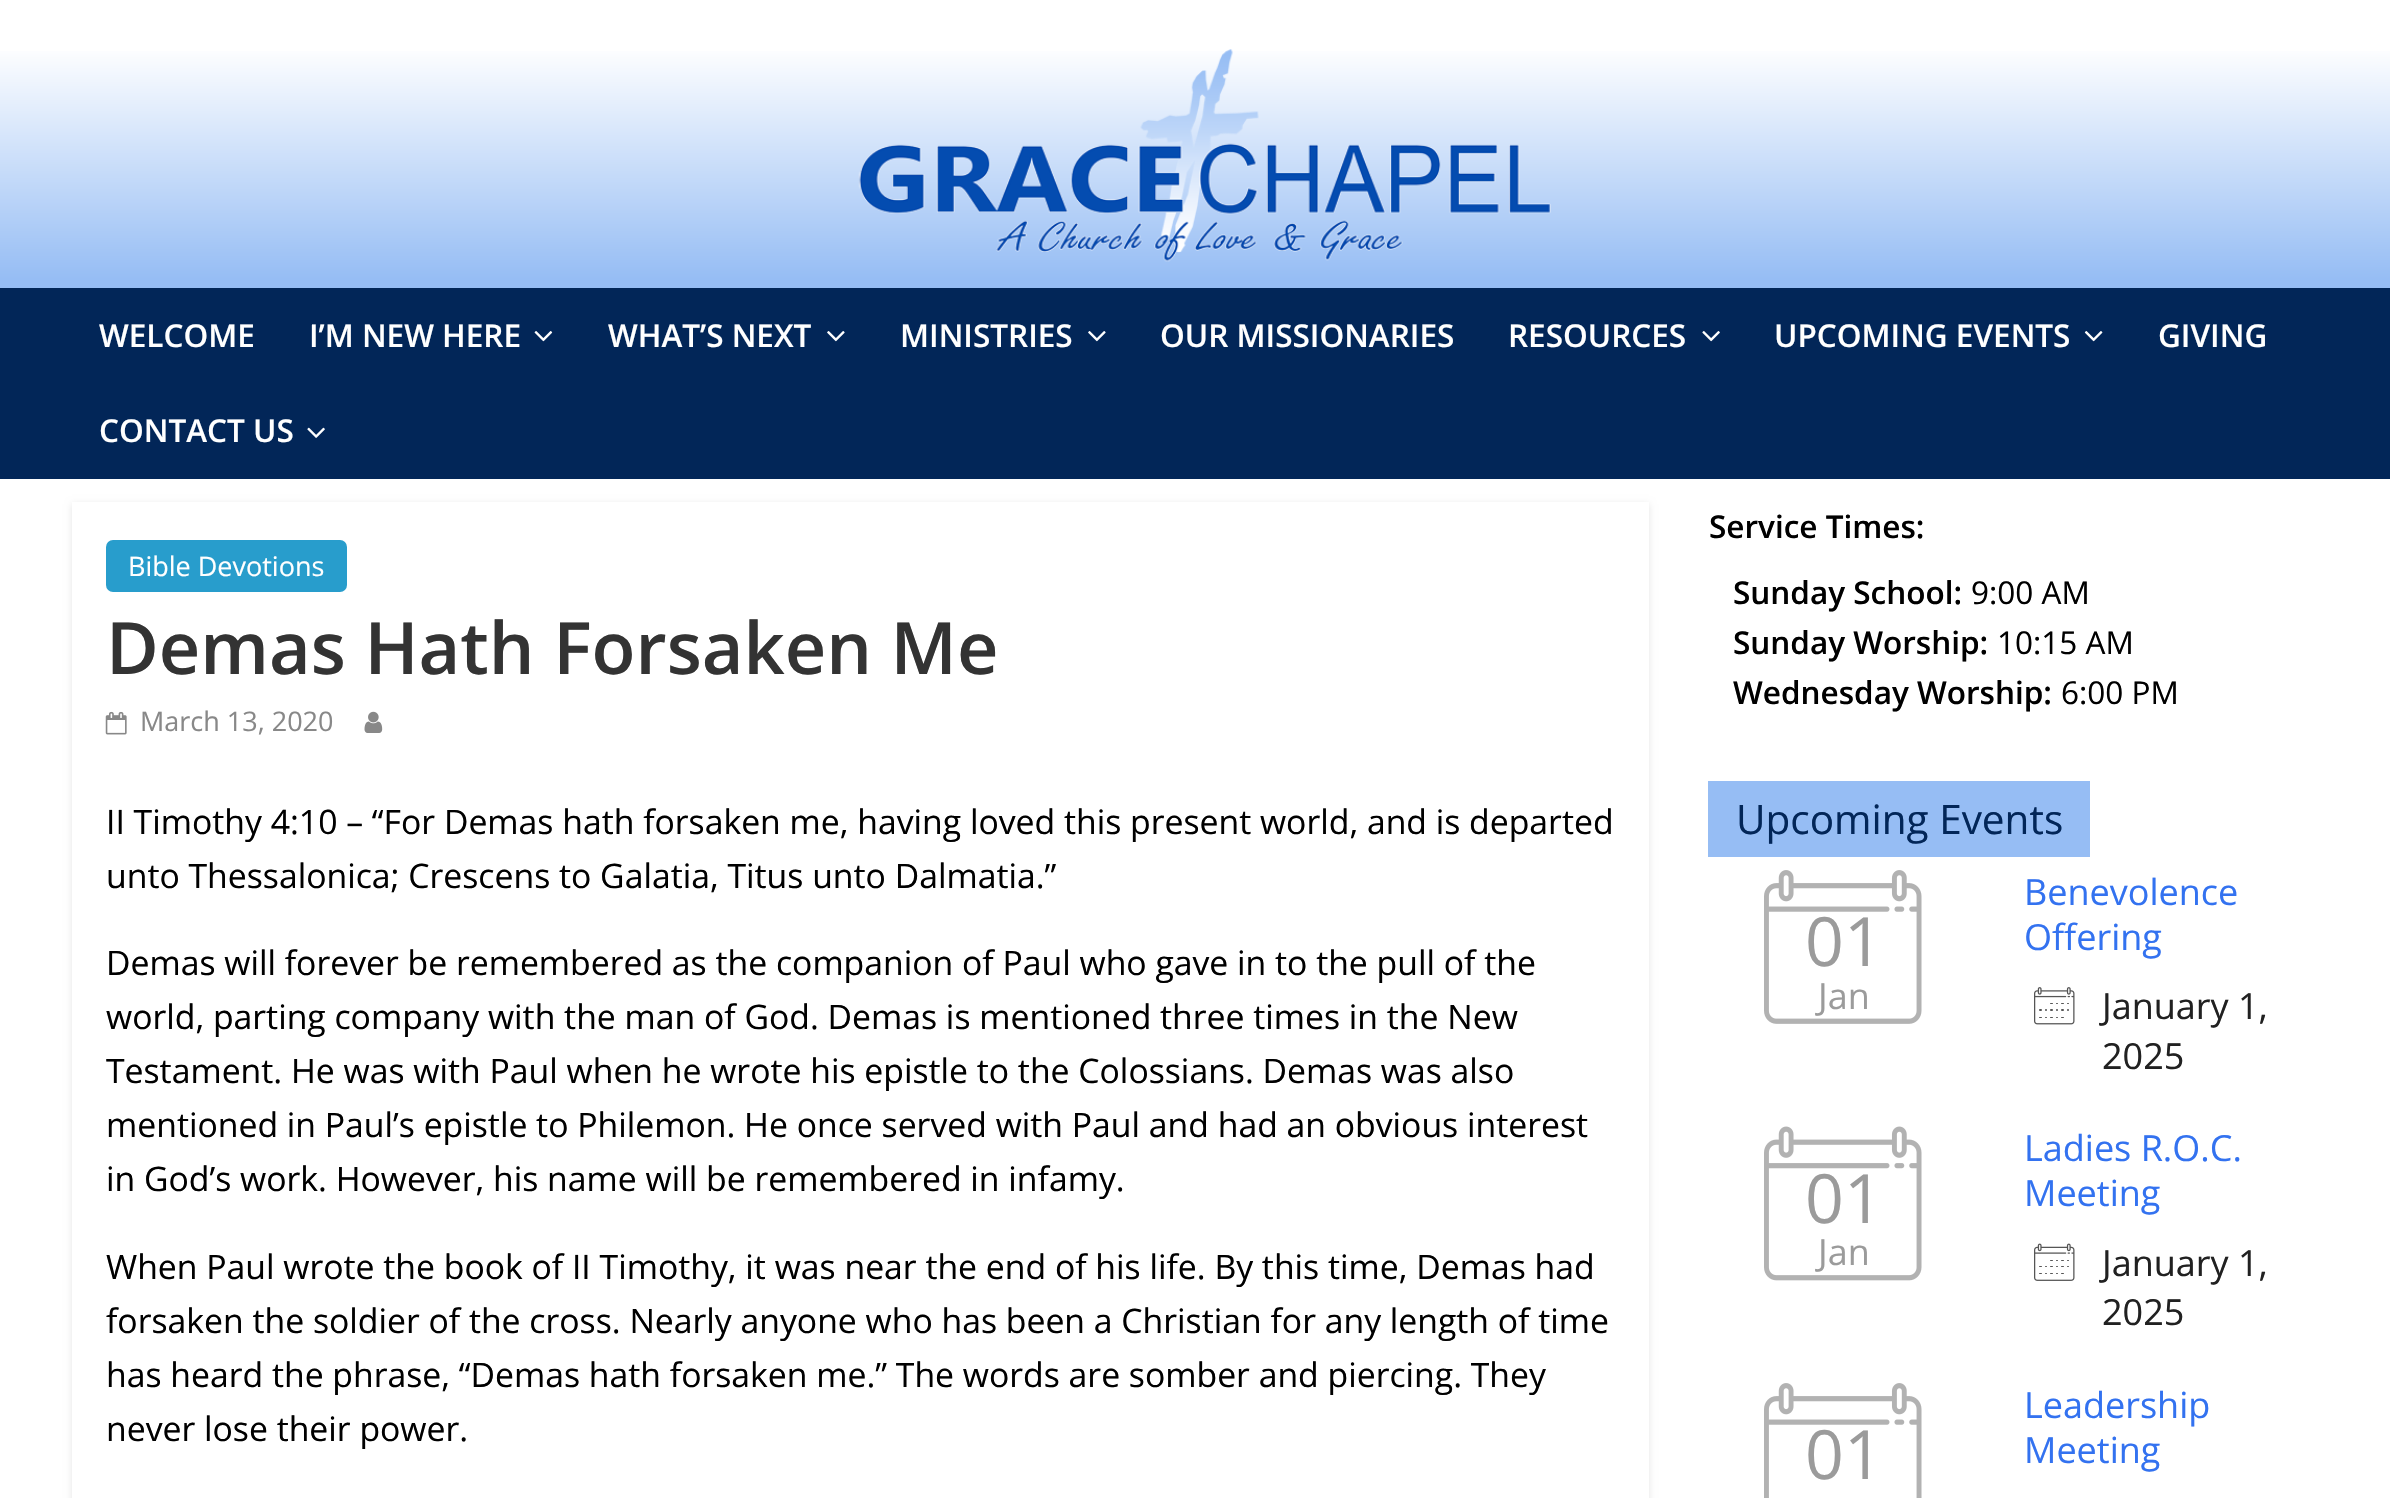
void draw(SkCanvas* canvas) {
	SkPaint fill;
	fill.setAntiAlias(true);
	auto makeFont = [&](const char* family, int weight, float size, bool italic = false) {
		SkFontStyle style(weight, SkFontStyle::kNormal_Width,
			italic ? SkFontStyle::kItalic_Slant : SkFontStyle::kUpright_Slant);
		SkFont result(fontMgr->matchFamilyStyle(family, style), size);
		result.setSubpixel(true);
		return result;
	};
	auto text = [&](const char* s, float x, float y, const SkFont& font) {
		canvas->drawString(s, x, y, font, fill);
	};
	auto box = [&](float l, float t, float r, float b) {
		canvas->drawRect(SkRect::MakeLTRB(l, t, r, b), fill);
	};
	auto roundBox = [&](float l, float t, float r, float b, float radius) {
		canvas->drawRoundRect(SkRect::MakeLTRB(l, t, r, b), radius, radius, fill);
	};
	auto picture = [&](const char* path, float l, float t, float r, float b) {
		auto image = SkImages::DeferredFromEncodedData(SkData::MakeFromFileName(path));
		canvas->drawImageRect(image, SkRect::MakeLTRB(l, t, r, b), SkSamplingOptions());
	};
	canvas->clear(0xFFFFFFFF);
	{
		const SkColor colors[] = {0xFF96BDF4, 0xFFFFFFFF};
		const float stops[] = {0, 1};
		const SkPoint ends[] = {{1196, 279}, {1196, 45}};
		fill.setShader(SkGradientShader::MakeLinear(ends, colors, stops, 2, SkTileMode::kClamp));
		fill.setAlpha(255);
	}
	box(0, 51, 2390, 279);
	picture("image0.png", 858, 49, 1551, 262);
	fill.setShader(nullptr);
	fill.setColor(0xFF022658);
	box(0, 288, 2390, 479);
	fill.setColor(0xFF96BDF4);
	box(0, 279, 2390, 288);
	picture("image1.png", 534, 331, 553, 342);
	picture("image2.png", 827, 331, 845, 342);
	picture("image2.png", 1088, 331, 1106, 342);
	picture("image3.png", 1702, 331, 1720, 342);
	picture("image4.png", 2084, 331, 2103, 342);
	picture("image5.png", 307, 427, 325, 438);
	canvas->save();
	canvas->clipPath(SkPathBuilder(SkPathFillType::kEvenOdd).moveTo(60, 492).lineTo(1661, 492).lineTo(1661, 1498).lineTo(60, 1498).close().moveTo(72, 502).lineTo(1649, 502).lineTo(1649, 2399).lineTo(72, 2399).close().detach(), true);
	fill.setColor(0x1A000000);
	fill.setMaskFilter(SkMaskFilter::MakeBlur(kNormal_SkBlurStyle, 3.5f));
	canvas->drawRect(SkRect::MakeLTRB(72, 504, 1649, 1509), fill);
	fill.setMaskFilter(nullptr);
	canvas->restore();
	fill.setColor(0xFF289DCC);
	roundBox(106, 540, 347, 592, 7);
	picture("image6.png", 105, 711, 127, 735);
	picture("image7.png", 364, 711, 383, 733);
	fill.setColor(0xFF96BDF4);
	box(1708, 781, 2090, 857);
	picture("image8.png", 1764, 870, 1922, 1024);
	picture("image9.png", 2034, 987, 2075, 1025);
	picture("image10.png", 1764, 1126, 1922, 1281);
	picture("image11.png", 2034, 1243, 2075, 1281);
	picture("image12.png", 1764, 1383, 1922, 1498);
	auto font1 = makeFont("Open Sans", 600, 31.5f);
	fill.setColor(0xFFFFFFFF);
	text("WELCOME", 99, 347, font1);
	text("I’M NEW HERE", 309, 347, font1);
	text("WHAT’S NEXT", 608, 347, font1);
	text("MINISTRIES", 900, 347, font1);
	text("OUR MISSIONARIES", 1160, 347, font1);
	text("RESOURCES", 1508, 347, font1);
	text("UPCOMING EVENTS", 1774, 347, font1);
	text("GIVING", 2158, 347, font1);
	text("CONTACT US", 99, 442, font1);
	auto font2 = makeFont("Open Sans", 400, 27);
	text("Bible Devotions", 128, 576, font2);
	auto font3 = makeFont("Open Sans", 600, 72);
	fill.setColor(0xFF333333);
	text("Demas Hath Forsaken Me", 106, 674, font3);
	fill.setColor(0xFF888888);
	text("March 13, 2020", 140, 731, font2);
	auto font4 = makeFont("Open Sans", 400, 33.75f);
	fill.setColor(0xFF000000);
	text("II Timothy 4:10 – “For Demas hath forsaken me, having loved this present world, and is departed", 106, 834, font4);
	text("unto Thessalonica; Crescens to Galatia, Titus unto Dalmatia.”", 106, 888, font4);
	text("Demas will forever be remembered as the companion of Paul who gave in to the pull of the", 106, 975, font4);
	text("world, parting company with the man of God. Demas is mentioned three times in the New", 106, 1029, font4);
	text("Testament. He was with Paul when he wrote his epistle to the Colossians. Demas was also", 106, 1083, font4);
	text("mentioned in Paul’s epistle to Philemon. He once served with Paul and had an obvious interest", 106, 1137, font4);
	text("in God’s work. However, his name will be remembered in infamy.", 106, 1191, font4);
	text("When Paul wrote the book of II Timothy, it was near the end of his life. By this time, Demas had", 106, 1279, font4);
	text("forsaken the soldier of the cross. Nearly anyone who has been a Christian for any length of time", 106, 1333, font4);
	text("has heard the phrase, “Demas hath forsaken me.” The words are somber and piercing. They", 106, 1387, font4);
	text("never lose their power.", 106, 1441, font4);
	text("Service Times:", 1709, 538, font1);
	text("Sunday School:", 1733, 604, font1);
	auto font5 = makeFont("Open Sans", 400, 31.5f);
	text("9:00 AM", 1971, 604, font5);
	text("Sunday Worship:", 1733, 654, font1);
	text("10:15 AM", 1997, 654, font5);
	text("Wednesday Worship:", 1733, 704, font1);
	text("6:00 PM", 2061, 704, font5);
	auto font6 = makeFont("Open Sans", 400, 40.5f);
	fill.setColor(0xFF022658);
	text("Upcoming Events", 1736, 834, font6);
	auto font7 = makeFont("Open Sans", 400, 68);
	fill.setColor(0xFF9B9B9B);
	text("01", 1805, 966, font7);
	auto font8 = makeFont("Open Sans", 400, 36);
	text("Jan", 1818, 1009, font8);
	fill.setColor(0xFF3372F0);
	text("Benevolence", 2024, 905, font8);
	text("Offering", 2024, 950, font8);
	fill.setColor(0xFF212121);
	text("January 1,", 2102, 1019, font8);
	text("2025", 2102, 1069, font8);
	fill.setColor(0xFF9B9B9B);
	text("01", 1805, 1223, font7);
	text("Jan", 1818, 1265, font8);
	fill.setColor(0xFF3372F0);
	text("Ladies R.O.C.", 2024, 1161, font8);
	text("Meeting", 2024, 1206, font8);
	fill.setColor(0xFF212121);
	text("January 1,", 2102, 1276, font8);
	text("2025", 2102, 1325, font8);
	fill.setColor(0xFF9B9B9B);
	text("01", 1805, 1479, font7);
	fill.setColor(0xFF3372F0);
	text("Leadership", 2024, 1418, font8);
	text("Meeting", 2024, 1463, font8);
}
